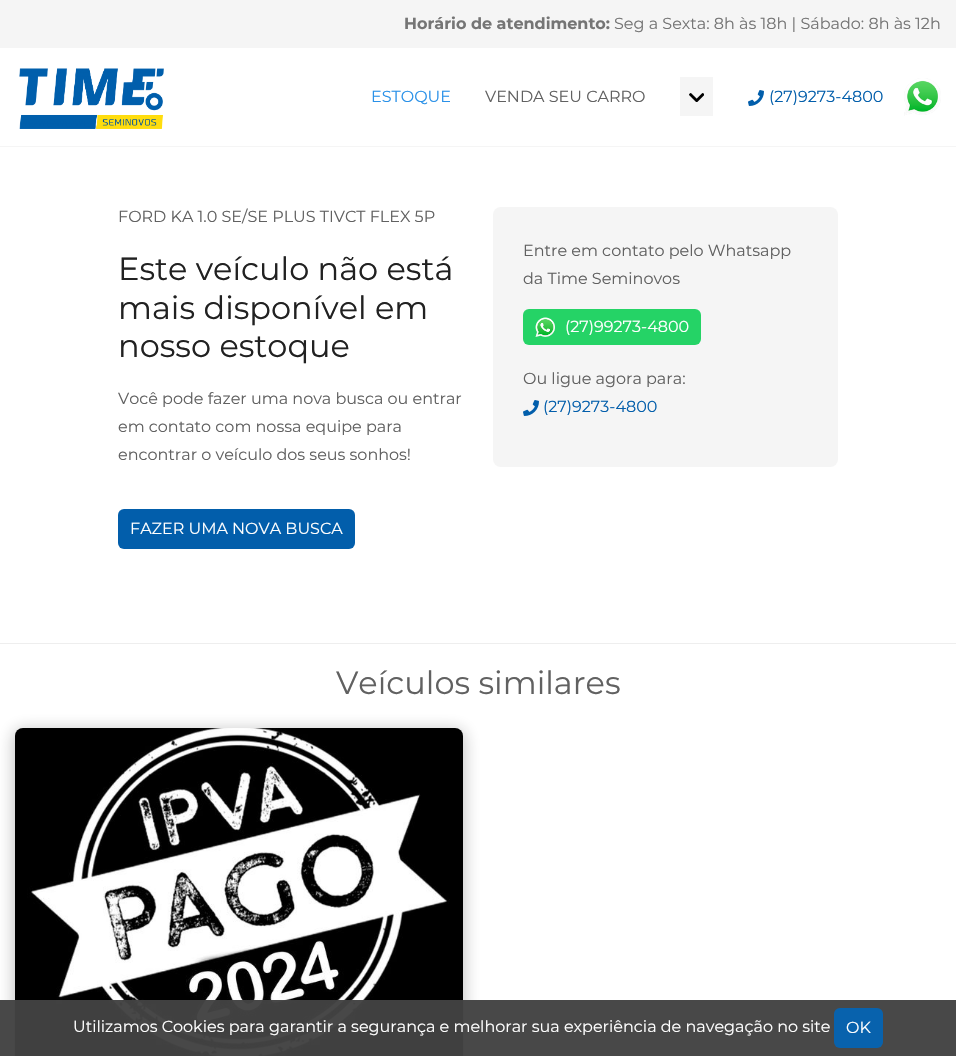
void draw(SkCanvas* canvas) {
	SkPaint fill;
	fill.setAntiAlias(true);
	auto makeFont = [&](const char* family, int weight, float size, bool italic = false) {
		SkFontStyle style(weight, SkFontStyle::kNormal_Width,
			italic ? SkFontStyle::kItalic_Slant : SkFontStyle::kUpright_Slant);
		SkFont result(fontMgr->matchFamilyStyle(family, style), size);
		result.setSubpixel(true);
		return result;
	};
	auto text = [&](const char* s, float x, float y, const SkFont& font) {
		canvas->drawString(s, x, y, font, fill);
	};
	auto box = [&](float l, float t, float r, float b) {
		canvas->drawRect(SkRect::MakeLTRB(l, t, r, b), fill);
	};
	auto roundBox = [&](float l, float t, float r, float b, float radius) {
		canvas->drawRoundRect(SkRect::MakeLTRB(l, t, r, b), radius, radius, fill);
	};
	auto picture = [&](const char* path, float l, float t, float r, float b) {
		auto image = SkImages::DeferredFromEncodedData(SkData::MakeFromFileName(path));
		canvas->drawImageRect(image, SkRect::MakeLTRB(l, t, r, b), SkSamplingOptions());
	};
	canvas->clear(0xFFFFFFFF);
	fill.setColor(0xFFF5F5F5);
	box(0, 0, 956, 48);
	box(0, 146, 956, 147);
	picture("image0.png", 19, 68, 164, 129);
	box(680, 77, 713, 116);
	picture("image1.png", 689, 93, 704, 102);
	picture("image2.png", 748, 90, 764, 106);
	picture("image3.png", 904, 78, 941, 116);
	fill.setColor(0xFF025EAB);
	roundBox(118, 509, 355, 549, 6);
	fill.setColor(0xFFF5F5F5);
	roundBox(493, 207, 838, 467, 8);
	fill.setColor(0xFF25D366);
	roundBox(523, 309, 701, 345, 6);
	picture("image4.png", 535, 317, 555, 337);
	picture("image5.png", 523, 400, 539, 416);
	fill.setColor(0xFFEEEEEE);
	box(0, 643, 956, 644);
	fill.setColor(0x40171717);
	fill.setMaskFilter(SkMaskFilter::MakeBlur(kNormal_SkBlurStyle, 8));
	canvas->drawRoundRect(SkRect::MakeLTRB(13, 729, 465, 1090), 10, 10, fill);
	fill.setMaskFilter(nullptr);
	picture("image6.png", 15, 728, 463, 1056);
	fill.setColor(0xF7424242);
	box(0, 1000, 956, 1056);
	fill.setColor(0xFF0862AD);
	roundBox(834, 1008, 883, 1048, 6);
	auto font1 = makeFont("Montserrat", 700, 16);
	fill.setColor(0xFF757575);
	text("Horário de atendimento:", 404, 29, font1);
	auto font2 = makeFont("Montserrat", 400, 16);
	text("Seg a Sexta: 8h às 18h | Sábado: 8h às 12h", 614, 29, font2);
	fill.setColor(0xFF2A91E8);
	text("ESTOQUE", 371, 102, font2);
	fill.setColor(0xFF616161);
	text("VENDA SEU CARRO", 485, 102, font2);
	fill.setColor(0xFF025EAB);
	text("(27)9273-4800", 769, 102, font2);
	fill.setColor(0xFF616161);
	text("FORD KA 1.0 SE/SE PLUS TIVCT FLEX 5P", 118, 222, font2);
	auto font3 = makeFont("Montserrat", 400, 32);
	fill.setColor(0xFF212121);
	text("Este veículo não está", 118, 280, font3);
	text("mais disponível em", 118, 319, font3);
	text("nosso estoque", 118, 357, font3);
	fill.setColor(0xFF616161);
	text("Você pode fazer uma nova busca ou entrar", 118, 404, font2);
	text("em contato com nossa equipe para", 118, 432, font2);
	text("encontrar o veículo dos seus sonhos!", 118, 460, font2);
	fill.setColor(0xFFFFFFFF);
	text("FAZER UMA NOVA BUSCA", 130, 534, font2);
	fill.setColor(0xFF616161);
	text("Entre em contato pelo Whatsapp", 523, 256, font2);
	text("da Time Seminovos", 523, 284, font2);
	fill.setColor(0xFFFFFFFF);
	text("(27)99273-4800", 565, 332, font2);
	fill.setColor(0xFF616161);
	text("Ou ligue agora para:", 523, 384, font2);
	fill.setColor(0xFF025EAB);
	text("(27)9273-4800", 543, 412, font2);
	fill.setColor(0xFF616161);
	text("Veículos similares", 336, 694, font3);
	fill.setColor(0xFFFFFFFF);
	text("Utilizamos Cookies para garantir a segurança e melhorar sua experiência de navegação no site", 73, 1032, font2);
	text("OK", 846, 1033, font2);
}
